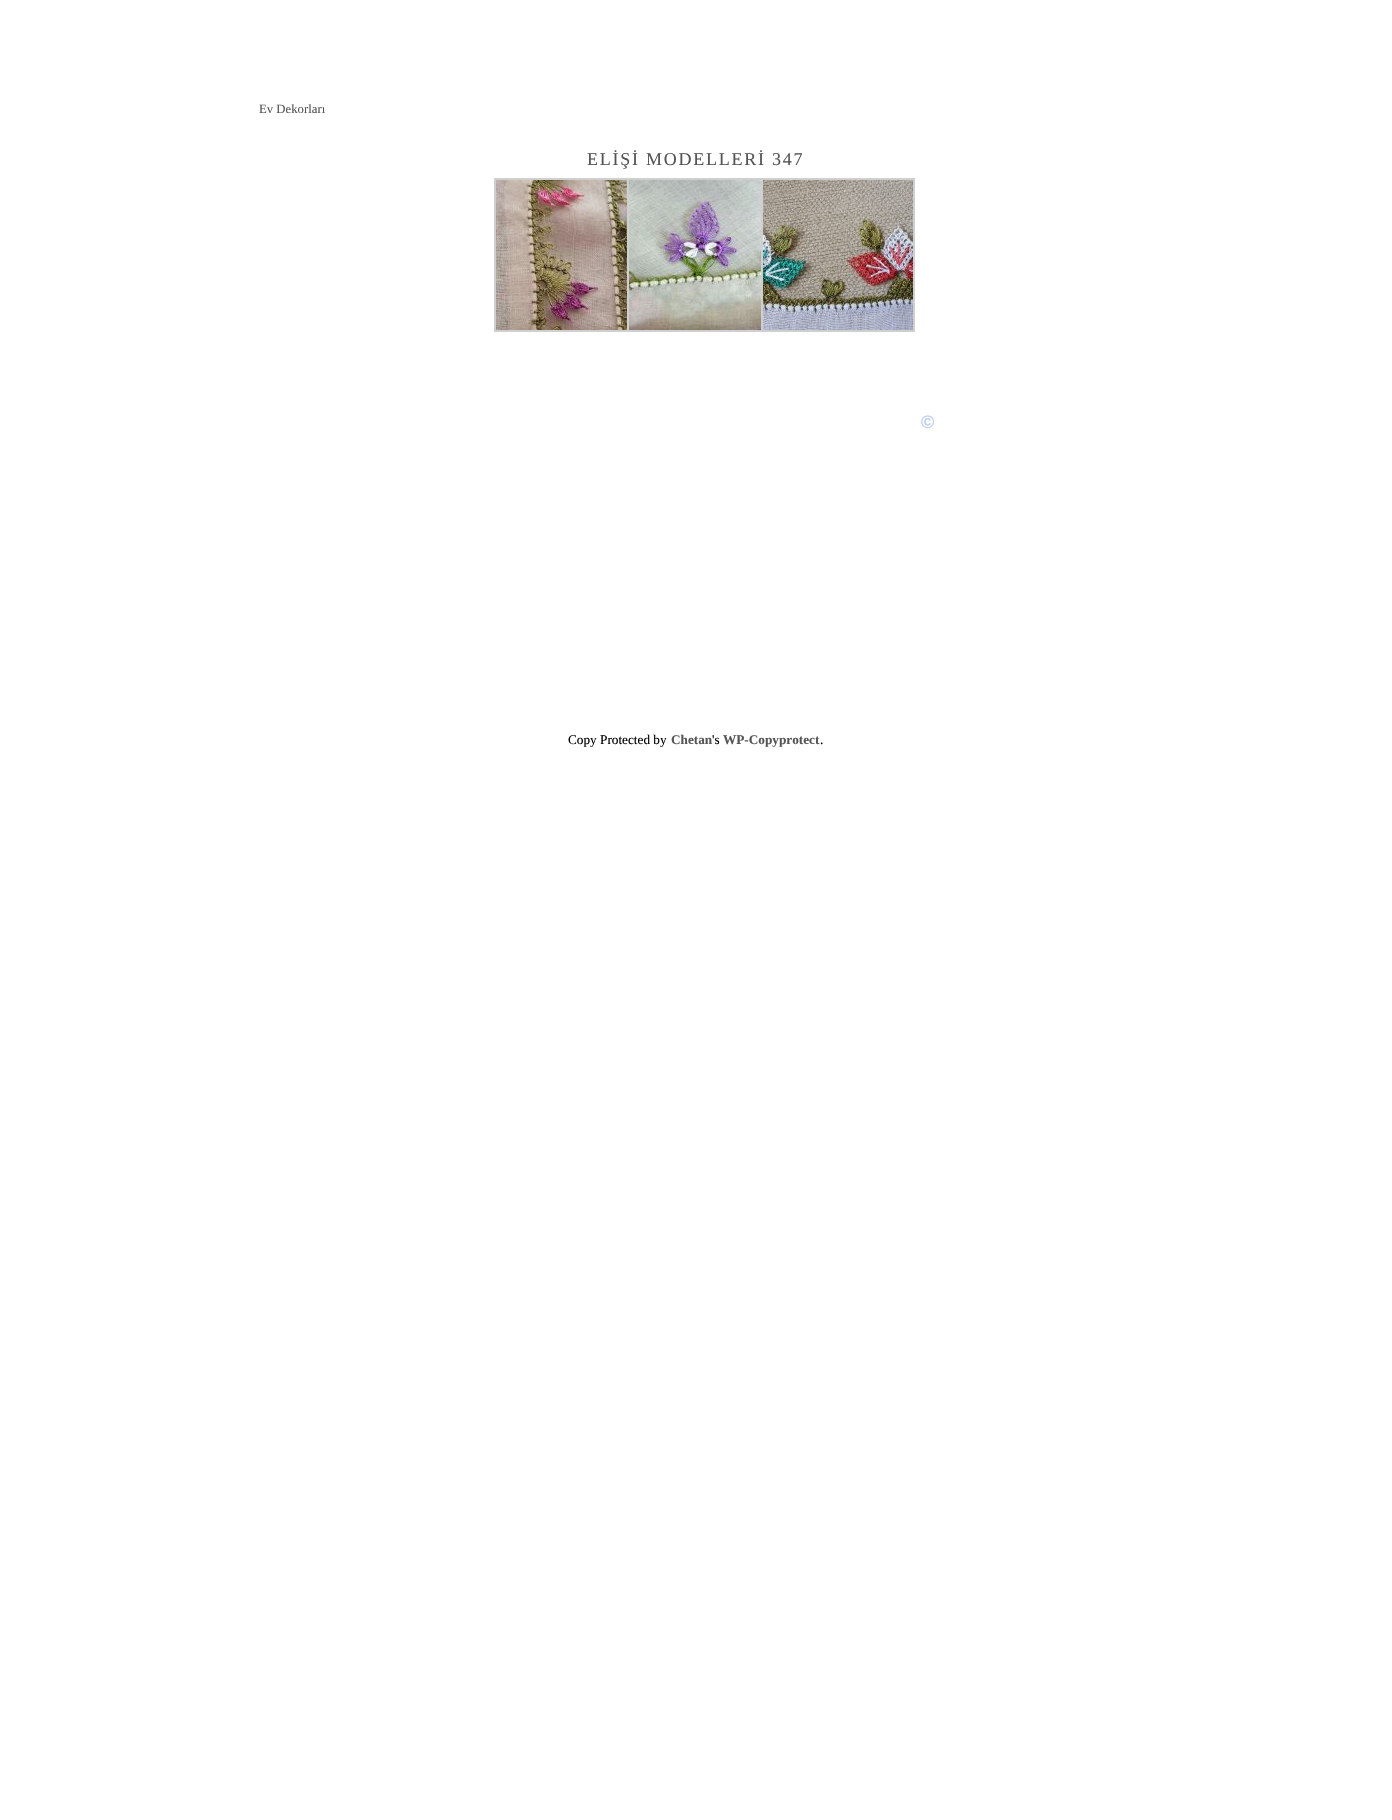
void draw(SkCanvas* canvas) {
	SkPaint fill;
	fill.setAntiAlias(true);
	auto makeFont = [&](const char* family, int weight, float size, bool italic = false) {
		SkFontStyle style(weight, SkFontStyle::kNormal_Width,
			italic ? SkFontStyle::kItalic_Slant : SkFontStyle::kUpright_Slant);
		SkFont result(fontMgr->matchFamilyStyle(family, style), size);
		result.setSubpixel(true);
		return result;
	};
	auto text = [&](const char* s, float x, float y, const SkFont& font) {
		canvas->drawString(s, x, y, font, fill);
	};
	auto spacedText = [&](const char* s, float x, float y, const SkFont& font, const SkPaint& ink, float letter, float word) {
		std::vector<SkGlyphID> glyphs(font.countText(s, strlen(s), SkTextEncoding::kUTF8));
		std::vector<float> xs(glyphs.size());
		font.textToGlyphs(s, strlen(s), SkTextEncoding::kUTF8, glyphs);
		font.getXPos(glyphs, xs, x);
		float extra = 0;
		for (size_t i = 0; i < glyphs.size(); i++) {
			xs[i] += extra;
			extra += letter + word * (glyphs[i] == font.unicharToGlyph(' '));
		}
		canvas->drawTextBlob(SkTextBlob::MakeFromPosHGlyphs(glyphs, xs, y, font), 0, 0, ink);
	};
	auto picture = [&](const char* path, float l, float t, float r, float b) {
		auto image = SkImages::DeferredFromEncodedData(SkData::MakeFromFileName(path));
		canvas->drawImageRect(image, SkRect::MakeLTRB(l, t, r, b), SkSamplingOptions());
	};
	canvas->clear(0xFFFFFFFF);
	fill.setStyle(SkPaint::kStroke_Style);
	fill.setStrokeWidth(2);
	fill.setColor(0xFFCFCFCF);
	canvas->drawRect(SkRect::MakeLTRB(495, 179, 647, 331), fill);
	picture("image0.png", 496, 180, 627, 330);
	canvas->drawRect(SkRect::MakeLTRB(628, 179, 780, 331), fill);
	picture("image1.png", 629, 180, 761, 330);
	canvas->drawRect(SkRect::MakeLTRB(762, 179, 914, 331), fill);
	picture("image2.png", 763, 180, 913, 330);
	auto font1 = makeFont("Liberation Serif", 400, 12.75f);
	fill.setStyle(SkPaint::kFill_Style);
	fill.setColor(0xFF545454);
	text("Ev Dekorları", 259, 113, font1);
	auto font2 = makeFont("Liberation Serif", 400, 18);
	spacedText("ELİŞİ MODELLERİ 347", 587, 165, font2, fill, 1.75f, 0);
	auto font3 = makeFont("Liberation Sans", 700, 18);
	fill.setColor(0xFFBCCFF5);
	text("©", 921, 428, font3);
	auto font4 = makeFont("Liberation Serif", 400, 13.25f);
	fill.setColor(0xFF000000);
	text("Copy Protected by", 568, 744, font4);
	auto font5 = makeFont("Liberation Serif", 700, 13.25f);
	fill.setColor(0xFF545454);
	text("Chetan", 671, 744, font5);
	fill.setColor(0xFF000000);
	text("'s", 712, 744, font4);
	fill.setColor(0xFF545454);
	text("WP-Copyprotect", 723, 744, font5);
	fill.setColor(0xFF000000);
	text(".", 820, 744, font4);
}
